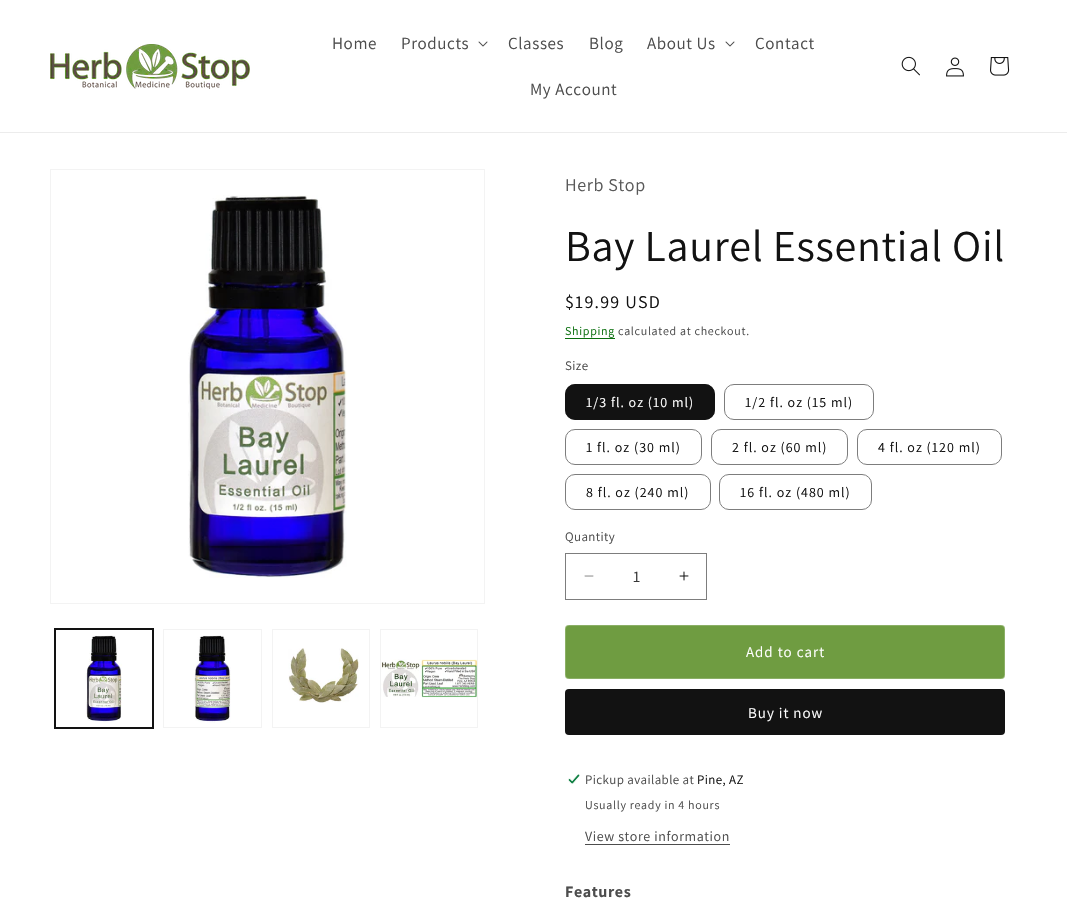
#include "include/core/SkBlurTypes.h"
#include "include/core/SkCanvas.h"
#include "include/core/SkData.h"
#include "include/core/SkFont.h"
#include "include/core/SkFontMgr.h"
#include "include/core/SkImage.h"
#include "include/core/SkMaskFilter.h"
#include "include/core/SkPaint.h"
#include "include/core/SkPathBuilder.h"
#include "include/core/SkTextBlob.h"
#include "include/effects/SkDashPathEffect.h"
#include "include/effects/SkGradientShader.h"
#include "include/utils/SkParsePath.h"

extern sk_sp<SkFontMgr> fontMgr;

void draw(SkCanvas* canvas) {
  SkPaint p;
  p.setAntiAlias(true);
  auto spacedText = [&](const char* s, float x, float y, const SkFont& font, const SkPaint& ink, float letter, float word) {
    std::vector<SkGlyphID> glyphs(font.countText(s, strlen(s), SkTextEncoding::kUTF8));
    std::vector<float> xs(glyphs.size());
    font.textToGlyphs(s, strlen(s), SkTextEncoding::kUTF8, glyphs);
    font.getXPos(glyphs, xs, x);
    float extra = 0;
    for (size_t i = 0; i < glyphs.size(); i++) {
      xs[i] += extra;
      extra += letter + word * (glyphs[i] == font.unicharToGlyph(' '));
    }
    canvas->drawTextBlob(SkTextBlob::MakeFromPosHGlyphs(glyphs, xs, y, font), 0, 0, ink);
  };
  canvas->clear(SK_ColorWHITE);
  p.setColor(SkColorSetRGB(236, 236, 236));
  canvas->drawRect(SkRect::MakeLTRB(0, 132, 1067, 133), p);
  canvas->drawImageRect(SkImages::DeferredFromEncodedData(SkData::MakeFromFileName("images/1.png")), SkRect::MakeLTRB(50, 44, 250, 89), SkSamplingOptions());
  canvas->drawImageRect(SkImages::DeferredFromEncodedData(SkData::MakeFromFileName("images/2.png")), SkRect::MakeLTRB(478, 41, 488, 47), SkSamplingOptions());
  canvas->drawImageRect(SkImages::DeferredFromEncodedData(SkData::MakeFromFileName("images/2.png")), SkRect::MakeLTRB(725, 41, 735, 47), SkSamplingOptions());
  canvas->drawImageRect(SkImages::DeferredFromEncodedData(SkData::MakeFromFileName("images/3.png")), SkRect::MakeLTRB(901, 56, 920, 76), SkSamplingOptions());
  canvas->drawImageRect(SkImages::DeferredFromEncodedData(SkData::MakeFromFileName("images/4.png")), SkRect::MakeLTRB(946, 57, 964, 77), SkSamplingOptions());
  canvas->drawImageRect(SkImages::DeferredFromEncodedData(SkData::MakeFromFileName("images/5.png")), SkRect::MakeLTRB(990, 57, 1010, 76), SkSamplingOptions());
  p.setStyle(SkPaint::kStroke_Style);
  p.setStrokeWidth(1);
  p.setColor(SkColorSetRGB(243, 243, 243));
  canvas->drawRect(SkRect::MakeLTRB(50.5f, 169.5f, 484.5f, 603.5f), p);
  canvas->drawImageRect(SkImages::DeferredFromEncodedData(SkData::MakeFromFileName("images/6.png")), SkRect::MakeLTRB(188, 195, 347, 578), SkSamplingOptions());
  p.setColor(SkColorSetRGB(18, 18, 18));
  canvas->drawRect(SkRect::MakeLTRB(54.5f, 628.5f, 153.5f, 728.5f), p);
  canvas->drawRect(SkRect::MakeLTRB(55.5f, 629.5f, 152.5f, 727.5f), p);
  canvas->drawImageRect(SkImages::DeferredFromEncodedData(SkData::MakeFromFileName("images/7.png")), SkRect::MakeLTRB(85, 635, 122, 723), SkSamplingOptions());
  p.setColor(SkColorSetRGB(243, 243, 243));
  canvas->drawRect(SkRect::MakeLTRB(163.5f, 629.5f, 261.5f, 727.5f), p);
  canvas->drawImageRect(SkImages::DeferredFromEncodedData(SkData::MakeFromFileName("images/8.png")), SkRect::MakeLTRB(193, 635, 231, 723), SkSamplingOptions());
  canvas->drawRect(SkRect::MakeLTRB(272.5f, 629.5f, 369.5f, 727.5f), p);
  canvas->drawImageRect(SkImages::DeferredFromEncodedData(SkData::MakeFromFileName("images/9.png")), SkRect::MakeLTRB(288, 648, 359, 703), SkSamplingOptions());
  canvas->drawRect(SkRect::MakeLTRB(380.5f, 629.5f, 477.5f, 727.5f), p);
  canvas->drawImageRect(SkImages::DeferredFromEncodedData(SkData::MakeFromFileName("images/10.png")), SkRect::MakeLTRB(381, 659, 477, 698), SkSamplingOptions());
  p.setStyle(SkPaint::kFill_Style);
  p.setColor(SkColorSetRGB(10, 111, 14));
  canvas->drawRect(SkRect::MakeLTRB(565, 338, 615, 339), p);
  p.setColor(SkColorSetRGB(18, 18, 18));
  canvas->drawRoundRect(SkRect::MakeLTRB(565, 384, 715, 420), 10, 10, p);
  p.setStyle(SkPaint::kStroke_Style);
  p.setColor(SkColorSetARGB(140, 18, 18, 18));
  canvas->drawRoundRect(SkRect::MakeLTRB(565.5f, 384.5f, 714.5f, 419.5f), 9.5f, 9.5f, p);
  p.setColor(SkColorSetRGB(125, 125, 125));
  canvas->drawRoundRect(SkRect::MakeLTRB(724.5f, 384.5f, 873.5f, 419.5f), 9.5f, 9.5f, p);
  canvas->drawRoundRect(SkRect::MakeLTRB(565.5f, 429.5f, 701.5f, 464.5f), 9.5f, 9.5f, p);
  canvas->drawRoundRect(SkRect::MakeLTRB(711.5f, 429.5f, 847.5f, 464.5f), 9.5f, 9.5f, p);
  canvas->drawRoundRect(SkRect::MakeLTRB(857.5f, 429.5f, 1001.5f, 464.5f), 9.5f, 9.5f, p);
  canvas->drawRoundRect(SkRect::MakeLTRB(565.5f, 474.5f, 710.5f, 509.5f), 9.5f, 9.5f, p);
  canvas->drawRoundRect(SkRect::MakeLTRB(719.5f, 474.5f, 871.5f, 509.5f), 9.5f, 9.5f, p);
  canvas->drawImageRect(SkImages::DeferredFromEncodedData(SkData::MakeFromFileName("images/11.png")), SkRect::MakeLTRB(584, 575, 594, 577), SkSamplingOptions());
  canvas->drawImageRect(SkImages::DeferredFromEncodedData(SkData::MakeFromFileName("images/12.png")), SkRect::MakeLTRB(679, 571, 689, 581), SkSamplingOptions());
  canvas->drawRect(SkRect::MakeLTRB(565.5f, 553.5f, 706.5f, 599.5f), p);
  p.setStyle(SkPaint::kFill_Style);
  p.setColor(SkColorSetRGB(111, 156, 65));
  canvas->drawRoundRect(SkRect::MakeLTRB(565, 625, 1005, 679), 4, 4, p);
  p.setStyle(SkPaint::kStroke_Style);
  p.setStrokeWidth(0.3f);
  p.setColor(SK_ColorWHITE);
  canvas->drawRoundRect(SkRect::MakeLTRB(565.15f, 625.15f, 1004.85f, 678.85f), 3.85f, 3.85f, p);
  p.setStyle(SkPaint::kFill_Style);
  p.setColor(SkColorSetRGB(18, 18, 18));
  canvas->drawRoundRect(SkRect::MakeLTRB(565, 689, 1005, 735), 4, 4, p);
  canvas->drawImageRect(SkImages::DeferredFromEncodedData(SkData::MakeFromFileName("images/13.png")), SkRect::MakeLTRB(568, 774, 580, 784), SkSamplingOptions());
  p.setColor(SkColorSetRGB(77, 77, 77));
  canvas->drawRect(SkRect::MakeLTRB(585, 844, 730, 845), p);
  SkFont font1(fontMgr->matchFamilyStyle("Assistant", SkFontStyle::Normal()), 17);
  font1.setSubpixel(true);
  spacedText("Home", 332, 49, font1, p, 0.6f, 0);
  spacedText("Products", 401, 49, font1, p, 0.6f, 0);
  spacedText("Classes", 508, 49, font1, p, 0.6f, 0);
  spacedText("Blog", 589, 49, font1, p, 0.6f, 0);
  spacedText("About Us", 647, 49, font1, p, 0.6f, 0);
  spacedText("Contact", 755, 49, font1, p, 0.6f, 0);
  spacedText("My Account", 530, 95, font1, p, 0.6f, 0);
  SkFont font2(fontMgr->matchFamilyStyle("Assistant", SkFontStyle::Normal()), 18);
  font2.setSubpixel(true);
  p.setColor(SkColorSetRGB(89, 89, 89));
  spacedText("Herb Stop", 565, 191, font2, p, 0.6f, 0);
  SkFont font3(fontMgr->matchFamilyStyle("Assistant", SkFontStyle::Normal()), 44);
  font3.setSubpixel(true);
  p.setColor(SkColorSetRGB(18, 18, 18));
  spacedText("Bay Laurel Essential Oil", 565, 261, font3, p, 0.7f, 0);
  spacedText("$19.99 USD", 565, 308, font2, p, 1.25f, 0);
  SkFont font4(fontMgr->matchFamilyStyle("Assistant", SkFontStyle::Normal()), 12);
  font4.setSubpixel(true);
  p.setColor(SkColorSetRGB(10, 111, 14));
  spacedText("Shipping", 565, 335, font4, p, 0.7f, 0);
  p.setColor(SkColorSetRGB(77, 77, 77));
  spacedText("calculated at checkout.", 618, 335, font4, p, 0.7f, 0);
  SkFont font5(fontMgr->matchFamilyStyle("Assistant", SkFontStyle::Normal()), 13);
  font5.setSubpixel(true);
  spacedText("Size", 565, 370, font5, p, 0.4f, 0);
  SkFont font6(fontMgr->matchFamilyStyle("Assistant", SkFontStyle::Normal()), 14);
  font6.setSubpixel(true);
  p.setColor(SK_ColorWHITE);
  spacedText("1/3 fl. oz (10 ml)", 586, 407, font6, p, 1, 0);
  p.setColor(SkColorSetRGB(18, 18, 18));
  spacedText("1/2 fl. oz (15 ml)", 745, 407, font6, p, 1, 0);
  spacedText("1 fl. oz (30 ml)", 586, 452, font6, p, 1, 0);
  spacedText("2 fl. oz (60 ml)", 732, 452, font6, p, 1, 0);
  spacedText("4 fl. oz (120 ml)", 878, 452, font6, p, 1, 0);
  spacedText("8 fl. oz (240 ml)", 586, 497, font6, p, 1, 0);
  spacedText("16 fl. oz (480 ml)", 740, 497, font6, p, 1, 0);
  p.setColor(SkColorSetRGB(77, 77, 77));
  spacedText("Quantity", 565, 541, font5, p, 0.4f, 0);
  SkFont font7(fontMgr->matchFamilyStyle("Assistant", SkFontStyle::Normal()), 16);
  font7.setSubpixel(true);
  p.setColor(SkColorSetRGB(54, 54, 54));
  canvas->drawString("1", 633, 582, font7, p);
  SkFont font8(fontMgr->matchFamilyStyle("Assistant", SkFontStyle::Normal()), 15);
  font8.setSubpixel(true);
  p.setColor(SK_ColorWHITE);
  spacedText("Add to cart", 746, 657, font8, p, 1, 0);
  spacedText("Buy it now", 748, 718, font8, p, 1, 0);
  p.setColor(SkColorSetRGB(77, 77, 77));
  spacedText("Pickup available at", 585, 784, font5, p, 0.4f, 0);
  p.setColor(SkColorSetRGB(18, 18, 18));
  spacedText("Pine, AZ", 697, 784, font5, p, 0.4f, 0);
  p.setColor(SkColorSetRGB(77, 77, 77));
  spacedText("Usually ready in 4 hours", 585, 809, font4, p, 0.7f, 0);
  spacedText("View store information", 585, 841, font6, p, 0.6f, 0);
  SkFont font9(fontMgr->matchFamilyStyle("Assistant", SkFontStyle::Bold()), 16);
  font9.setSubpixel(true);
  spacedText("Features", 565, 897, font9, p, 0.6f, 0);
}
